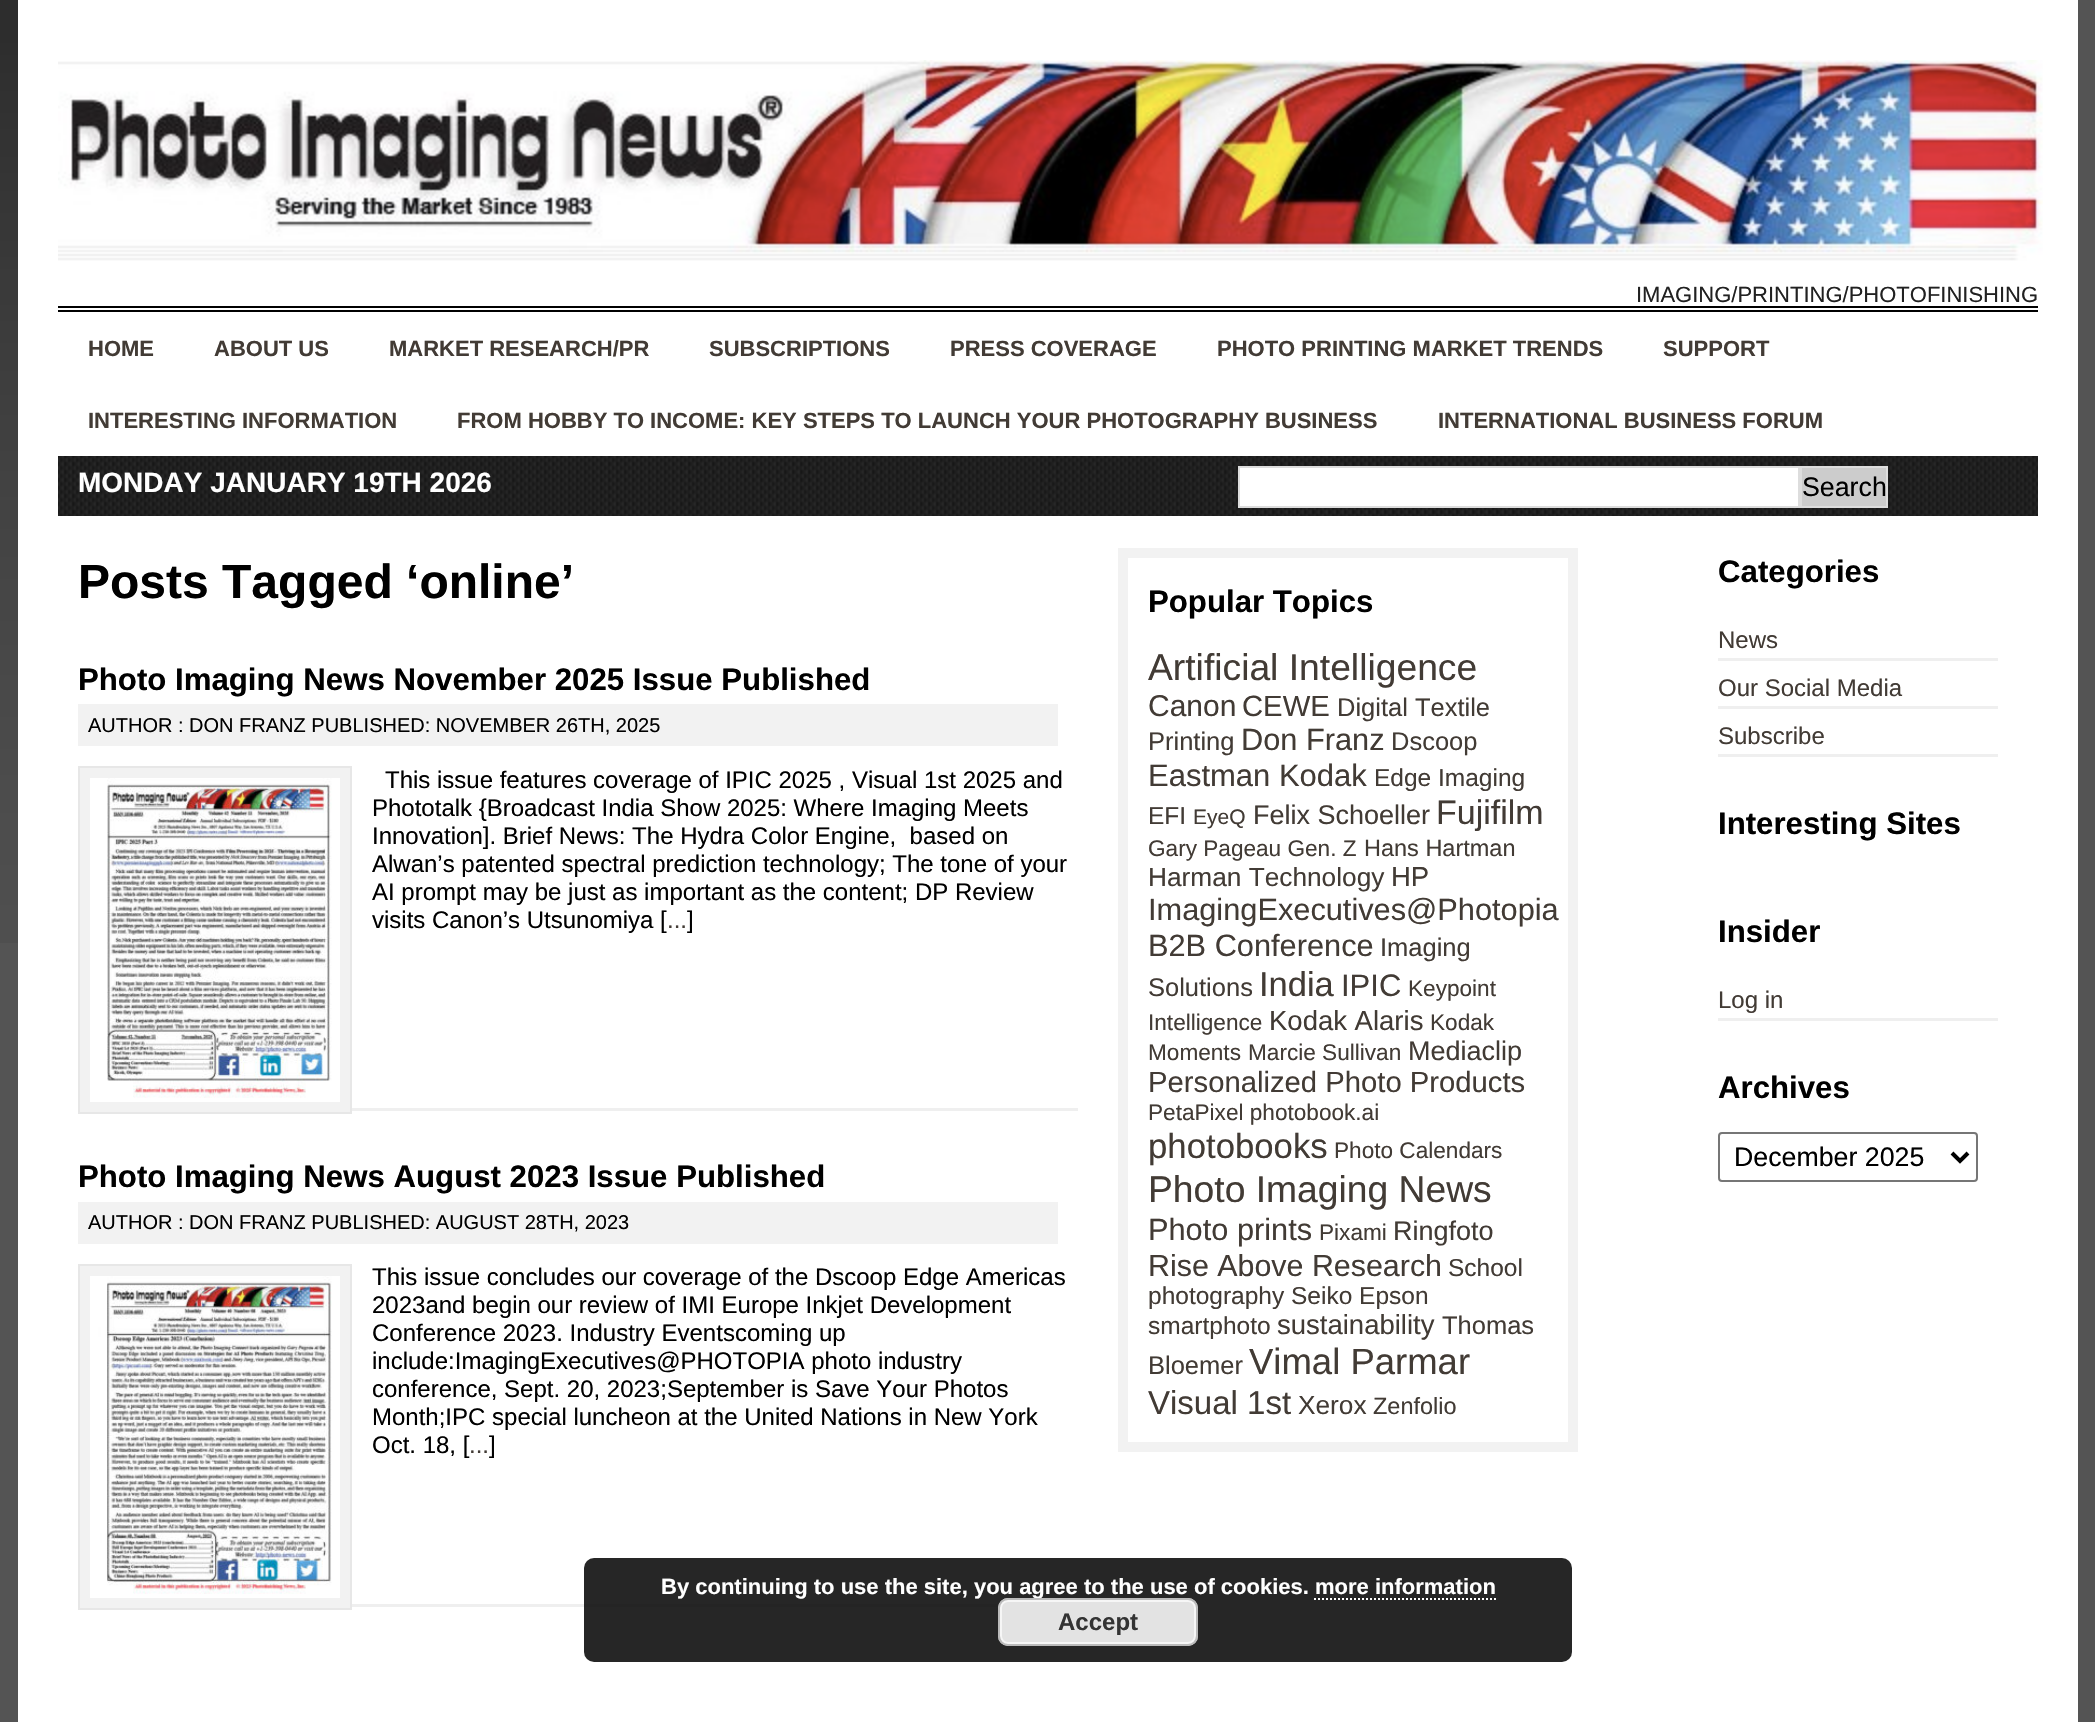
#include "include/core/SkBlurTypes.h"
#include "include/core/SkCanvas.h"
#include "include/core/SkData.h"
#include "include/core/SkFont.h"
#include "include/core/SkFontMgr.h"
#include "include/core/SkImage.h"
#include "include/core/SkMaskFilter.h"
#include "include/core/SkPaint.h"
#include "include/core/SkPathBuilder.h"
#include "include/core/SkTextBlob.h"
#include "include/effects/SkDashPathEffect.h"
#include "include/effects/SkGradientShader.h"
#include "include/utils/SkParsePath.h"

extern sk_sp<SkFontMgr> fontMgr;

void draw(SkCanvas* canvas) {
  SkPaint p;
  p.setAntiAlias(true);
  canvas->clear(SkColorSetRGB(84, 84, 84));
  canvas->drawImageRect(SkImages::DeferredFromEncodedData(SkData::MakeFromFileName("images/1.png")), SkRect::MakeLTRB(0, 0, 18, 943), SkSamplingOptions());
  p.setColor(SK_ColorWHITE);
  canvas->drawRect(SkRect::MakeLTRB(18, 0, 2078, 1722), p);
  canvas->drawImageRect(SkImages::DeferredFromEncodedData(SkData::MakeFromFileName("images/2.png")), SkRect::MakeLTRB(58, 60, 2043, 261), SkSamplingOptions());
  p.setColor(SK_ColorBLACK);
  canvas->drawRect(SkRect::MakeLTRB(58, 306, 2038, 308), p);
  canvas->drawRect(SkRect::MakeLTRB(58, 310, 2038, 312), p);
  canvas->drawImageRect(SkImages::DeferredFromEncodedData(SkData::MakeFromFileName("images/3.png")), SkRect::MakeLTRB(58, 456, 2038, 516), SkSamplingOptions());
  p.setColor(SK_ColorWHITE);
  canvas->drawRect(SkRect::MakeLTRB(1239, 467, 1799, 507), p);
  p.setStyle(SkPaint::kStroke_Style);
  p.setStrokeWidth(2);
  p.setColor(SkColorSetRGB(221, 221, 221));
  canvas->drawRect(SkRect::MakeLTRB(1239, 467, 1799, 507), p);
  p.setStyle(SkPaint::kFill_Style);
  p.setColor(SkColorSetRGB(204, 204, 204));
  canvas->drawRect(SkRect::MakeLTRB(1801, 467, 1887, 507), p);
  p.setStyle(SkPaint::kStroke_Style);
  p.setColor(SkColorSetRGB(221, 221, 221));
  canvas->drawRect(SkRect::MakeLTRB(1801, 467, 1887, 507), p);
  p.setStyle(SkPaint::kFill_Style);
  p.setColor(SkColorSetRGB(239, 239, 239));
  canvas->drawRect(SkRect::MakeLTRB(352, 1108, 1078, 1111), p);
  p.setColor(SkColorSetRGB(242, 242, 242));
  canvas->drawRect(SkRect::MakeLTRB(78, 704, 1058, 746), p);
  canvas->drawRect(SkRect::MakeLTRB(79, 767, 351, 1113), p);
  p.setStyle(SkPaint::kStroke_Style);
  p.setColor(SkColorSetRGB(231, 231, 231));
  canvas->drawRect(SkRect::MakeLTRB(79, 767, 351, 1113), p);
  canvas->drawImageRect(SkImages::DeferredFromEncodedData(SkData::MakeFromFileName("images/4.png")), SkRect::MakeLTRB(90, 778, 340, 1102), SkSamplingOptions());
  p.setStyle(SkPaint::kFill_Style);
  p.setColor(SkColorSetRGB(239, 239, 239));
  canvas->drawRect(SkRect::MakeLTRB(352, 1604, 999, 1607), p);
  p.setColor(SkColorSetRGB(242, 242, 242));
  canvas->drawRect(SkRect::MakeLTRB(78, 1202, 1058, 1244), p);
  canvas->drawRect(SkRect::MakeLTRB(79, 1265, 351, 1609), p);
  p.setStyle(SkPaint::kStroke_Style);
  p.setColor(SkColorSetRGB(231, 231, 231));
  canvas->drawRect(SkRect::MakeLTRB(79, 1265, 351, 1609), p);
  canvas->drawImageRect(SkImages::DeferredFromEncodedData(SkData::MakeFromFileName("images/5.png")), SkRect::MakeLTRB(90, 1276, 340, 1598), SkSamplingOptions());
  p.setStrokeWidth(10);
  p.setColor(SkColorSetRGB(242, 242, 242));
  canvas->drawRect(SkRect::MakeLTRB(1123, 553, 1573, 1447), p);
  p.setStyle(SkPaint::kFill_Style);
  p.setColor(SkColorSetRGB(239, 239, 239));
  canvas->drawRect(SkRect::MakeLTRB(1718, 658, 1998, 661), p);
  canvas->drawRect(SkRect::MakeLTRB(1718, 706, 1998, 709), p);
  canvas->drawRect(SkRect::MakeLTRB(1718, 754, 1998, 757), p);
  canvas->drawRect(SkRect::MakeLTRB(1718, 1018, 1998, 1021), p);
  p.setStyle(SkPaint::kStroke_Style);
  p.setStrokeWidth(2);
  p.setColor(SkColorSetRGB(118, 118, 118));
  canvas->drawRoundRect(SkRect::MakeLTRB(1719, 1133, 1977, 1181), 3, 3, p);
  p.setStrokeWidth(4);
  p.setColor(SK_ColorBLACK);
  canvas->drawPath(SkPathBuilder().moveTo(1952, 1153).lineTo(1960, 1161).lineTo(1968, 1153).detach(), p);
  p.setStyle(SkPaint::kFill_Style);
  p.setColor(SkColorSetARGB(217, 0, 0, 0));
  canvas->drawRoundRect(SkRect::MakeLTRB(584, 1558, 1572, 1662), 10, 10, p);
  p.setStyle(SkPaint::kStroke_Style);
  p.setStrokeWidth(2);
  p.setColor(SK_ColorWHITE);
  p.setPathEffect(SkDashPathEffect::Make({{2, 2}}, 0));
  canvas->drawPath(SkPathBuilder().moveTo(1314, 1599).lineTo(1496, 1599).detach(), p);
  p.setPathEffect(nullptr);
  SkFont font1(fontMgr->matchFamilyStyle("Liberation Sans", SkFontStyle::Normal()), 22);
  font1.setSubpixel(true);
  p.setStyle(SkPaint::kFill_Style);
  p.setColor(SkColorSetRGB(33, 33, 33));
  canvas->drawString("IMAGING/PRINTING/PHOTOFINISHING", 1636, 302, font1, p);
  SkFont font2(fontMgr->matchFamilyStyle("Liberation Sans", SkFontStyle::Bold()), 22);
  font2.setSubpixel(true);
  p.setColor(SkColorSetRGB(66, 59, 53));
  canvas->drawString("HOME", 88, 356, font2, p);
  canvas->drawString("ABOUT US", 214, 356, font2, p);
  canvas->drawString("MARKET RESEARCH/PR", 389, 356, font2, p);
  canvas->drawString("SUBSCRIPTIONS", 709, 356, font2, p);
  canvas->drawString("PRESS COVERAGE", 950, 356, font2, p);
  canvas->drawString("PHOTO PRINTING MARKET TRENDS", 1217, 356, font2, p);
  canvas->drawString("SUPPORT", 1663, 356, font2, p);
  canvas->drawString("INTERESTING INFORMATION", 88, 428, font2, p);
  canvas->drawString("FROM HOBBY TO INCOME: KEY STEPS TO LAUNCH YOUR PHOTOGRAPHY BUSINESS", 457, 428, font2, p);
  canvas->drawString("INTERNATIONAL BUSINESS FORUM", 1438, 428, font2, p);
  SkFont font3(fontMgr->matchFamilyStyle("Liberation Sans", SkFontStyle::Bold()), 28);
  font3.setSubpixel(true);
  p.setColor(SK_ColorWHITE);
  canvas->drawString("MONDAY JANUARY 19TH 2026", 78, 492, font3, p);
  SkFont font4(fontMgr->matchFamilyStyle("Liberation Sans", SkFontStyle::Normal()), 26.75f);
  font4.setSubpixel(true);
  p.setColor(SK_ColorBLACK);
  canvas->drawString("Search", 1802, 496, font4, p);
  SkFont font5(fontMgr->matchFamilyStyle("Liberation Sans", SkFontStyle::Bold()), 48);
  font5.setSubpixel(true);
  canvas->drawString("Posts Tagged ‘online’", 78, 598, font5, p);
  SkFont font6(fontMgr->matchFamilyStyle("Liberation Sans", SkFontStyle::Bold()), 31.2f);
  font6.setSubpixel(true);
  canvas->drawString("Photo Imaging News November 2025 Issue Published", 78, 690, font6, p);
  SkFont font7(fontMgr->matchFamilyStyle("Liberation Sans", SkFontStyle::Normal()), 20);
  font7.setSubpixel(true);
  canvas->drawString("AUTHOR : DON FRANZ PUBLISHED: NOVEMBER 26TH, 2025", 88, 732, font7, p);
  SkFont font8(fontMgr->matchFamilyStyle("Liberation Sans", SkFontStyle::Normal()), 24);
  font8.setSubpixel(true);
  canvas->drawString("This issue features coverage of IPIC 2025 , Visual 1st 2025 and", 385, 788, font8, p);
  canvas->drawString("Phototalk {Broadcast India Show 2025: Where Imaging Meets", 372, 816, font8, p);
  canvas->drawString("Innovation]. Brief News: The Hydra Color Engine,  based on", 372, 844, font8, p);
  canvas->drawString("Alwan’s patented spectral prediction technology; The tone of your", 372, 872, font8, p);
  canvas->drawString("AI prompt may be just as important as the content; DP Review", 372, 900, font8, p);
  canvas->drawString("visits Canon’s Utsunomiya [", 372, 928, font8, p);
  p.setColor(SkColorSetRGB(66, 59, 53));
  canvas->drawString("...", 667, 928, font8, p);
  p.setColor(SK_ColorBLACK);
  canvas->drawString("]", 687, 928, font8, p);
  canvas->drawString("Photo Imaging News August 2023 Issue Published", 78, 1187, font6, p);
  canvas->drawString("AUTHOR : DON FRANZ PUBLISHED: AUGUST 28TH, 2023", 88, 1229, font7, p);
  canvas->drawString("This issue concludes our coverage of the Dscoop Edge Americas", 372, 1285, font8, p);
  canvas->drawString("2023and begin our review of IMI Europe Inkjet Development", 372, 1313, font8, p);
  canvas->drawString("Conference 2023. Industry Eventscoming up", 372, 1341, font8, p);
  canvas->drawString("include:ImagingExecutives@PHOTOPIA photo industry", 372, 1369, font8, p);
  canvas->drawString("conference, Sept. 20, 2023;September is Save Your Photos", 372, 1397, font8, p);
  canvas->drawString("Month;IPC special luncheon at the United Nations in New York", 372, 1425, font8, p);
  canvas->drawString("Oct. 18, [", 372, 1453, font8, p);
  p.setColor(SkColorSetRGB(66, 59, 53));
  canvas->drawString("...", 469, 1453, font8, p);
  p.setColor(SK_ColorBLACK);
  canvas->drawString("]", 489, 1453, font8, p);
  canvas->drawString("Popular Topics", 1148, 612, font6, p);
  SkFont font9(fontMgr->matchFamilyStyle("Liberation Sans", SkFontStyle::Normal()), 37.25f);
  font9.setSubpixel(true);
  p.setColor(SkColorSetRGB(66, 59, 53));
  canvas->drawString("Artificial Intelligence", 1148, 680, font9, p);
  SkFont font10(fontMgr->matchFamilyStyle("Liberation Sans", SkFontStyle::Normal()), 30);
  font10.setSubpixel(true);
  canvas->drawString("Canon", 1148, 716, font10, p);
  SkFont font11(fontMgr->matchFamilyStyle("Liberation Sans", SkFontStyle::Normal()), 29.25f);
  font11.setSubpixel(true);
  canvas->drawString("CEWE", 1242, 716, font11, p);
  SkFont font12(fontMgr->matchFamilyStyle("Liberation Sans", SkFontStyle::Normal()), 25.5f);
  font12.setSubpixel(true);
  canvas->drawString("Digital Textile", 1337, 716, font12, p);
  canvas->drawString("Printing", 1148, 750, font12, p);
  SkFont font13(fontMgr->matchFamilyStyle("Liberation Sans", SkFontStyle::Normal()), 30.75f);
  font13.setSubpixel(true);
  canvas->drawString("Don Franz", 1241, 750, font13, p);
  canvas->drawString("Dscoop", 1391, 750, font12, p);
  SkFont font14(fontMgr->matchFamilyStyle("Liberation Sans", SkFontStyle::Normal()), 31);
  font14.setSubpixel(true);
  canvas->drawString("Eastman Kodak", 1148, 786, font14, p);
  SkFont font15(fontMgr->matchFamilyStyle("Liberation Sans", SkFontStyle::Normal()), 24.5f);
  font15.setSubpixel(true);
  canvas->drawString("Edge Imaging", 1374, 786, font15, p);
  canvas->drawString("EFI", 1148, 824, font15, p);
  SkFont font16(fontMgr->matchFamilyStyle("Liberation Sans", SkFontStyle::Normal()), 21);
  font16.setSubpixel(true);
  canvas->drawString("EyeQ", 1193, 824, font16, p);
  SkFont font17(fontMgr->matchFamilyStyle("Liberation Sans", SkFontStyle::Normal()), 27);
  font17.setSubpixel(true);
  canvas->drawString("Felix Schoeller", 1253, 824, font17, p);
  SkFont font18(fontMgr->matchFamilyStyle("Liberation Sans", SkFontStyle::Normal()), 34);
  font18.setSubpixel(true);
  canvas->drawString("Fujifilm", 1436, 824, font18, p);
  SkFont font19(fontMgr->matchFamilyStyle("Liberation Sans", SkFontStyle::Normal()), 22.6f);
  font19.setSubpixel(true);
  canvas->drawString("Gary Pageau Gen. Z", 1148, 856, font19, p);
  SkFont font20(fontMgr->matchFamilyStyle("Liberation Sans", SkFontStyle::Normal()), 23.5f);
  font20.setSubpixel(true);
  canvas->drawString("Hans Hartman", 1364, 856, font20, p);
  SkFont font21(fontMgr->matchFamilyStyle("Liberation Sans", SkFontStyle::Normal()), 26.25f);
  font21.setSubpixel(true);
  canvas->drawString("Harman Technology", 1148, 886, font21, p);
  SkFont font22(fontMgr->matchFamilyStyle("Liberation Sans", SkFontStyle::Normal()), 27.5f);
  font22.setSubpixel(true);
  canvas->drawString("HP", 1391, 886, font22, p);
  canvas->drawString("ImagingExecutives@Photopia", 1148, 920, font13, p);
  canvas->drawString("B2B Conference", 1148, 956, font13, p);
  canvas->drawString("Imaging", 1380, 956, font12, p);
  canvas->drawString("Solutions", 1148, 996, font12, p);
  SkFont font23(fontMgr->matchFamilyStyle("Liberation Sans", SkFontStyle::Normal()), 34.5f);
  font23.setSubpixel(true);
  canvas->drawString("India", 1259, 996, font23, p);
  canvas->drawString("IPIC", 1341, 996, font14, p);
  canvas->drawString("Keypoint", 1408, 996, font19, p);
  canvas->drawString("Intelligence", 1148, 1030, font19, p);
  canvas->drawString("Kodak Alaris", 1269, 1030, font22, p);
  canvas->drawString("Kodak", 1430, 1030, font19, p);
  canvas->drawString("Moments", 1148, 1060, font19, p);
  canvas->drawString("Marcie Sullivan", 1248, 1060, font19, p);
  canvas->drawString("Mediaclip", 1408, 1060, font17, p);
  canvas->drawString("Personalized Photo Products", 1148, 1092, font11, p);
  canvas->drawString("PetaPixel photobook.ai", 1148, 1120, font19, p);
  SkFont font24(fontMgr->matchFamilyStyle("Liberation Sans", SkFontStyle::Normal()), 34.75f);
  font24.setSubpixel(true);
  canvas->drawString("photobooks", 1148, 1158, font24, p);
  canvas->drawString("Photo Calendars", 1334, 1158, font19, p);
  canvas->drawString("Photo Imaging News", 1148, 1202, font9, p);
  canvas->drawString("Photo prints", 1148, 1240, font13, p);
  canvas->drawString("Pixami", 1319, 1240, font19, p);
  canvas->drawString("Ringfoto", 1393, 1240, font17, p);
  SkFont font25(fontMgr->matchFamilyStyle("Liberation Sans", SkFontStyle::Normal()), 30.4f);
  font25.setSubpixel(true);
  canvas->drawString("Rise Above Research", 1148, 1276, font25, p);
  canvas->drawString("School", 1448, 1276, font15, p);
  canvas->drawString("photography Seiko Epson", 1148, 1304, font15, p);
  canvas->drawString("smartphoto", 1148, 1334, font15, p);
  canvas->drawString("sustainability", 1277, 1334, font22, p);
  canvas->drawString("Thomas", 1442, 1334, font12, p);
  canvas->drawString("Bloemer", 1148, 1374, font12, p);
  SkFont font26(fontMgr->matchFamilyStyle("Liberation Sans", SkFontStyle::Normal()), 36.5f);
  font26.setSubpixel(true);
  canvas->drawString("Vimal Parmar", 1249, 1374, font26, p);
  SkFont font27(fontMgr->matchFamilyStyle("Liberation Sans", SkFontStyle::Normal()), 33);
  font27.setSubpixel(true);
  canvas->drawString("Visual 1st", 1148, 1414, font27, p);
  canvas->drawString("Xerox", 1298, 1414, font21, p);
  canvas->drawString("Zenfolio", 1373, 1414, font20, p);
  p.setColor(SK_ColorBLACK);
  canvas->drawString("Categories", 1718, 582, font6, p);
  p.setColor(SkColorSetRGB(66, 59, 53));
  canvas->drawString("News", 1718, 648, font8, p);
  canvas->drawString("Our Social Media", 1718, 696, font8, p);
  canvas->drawString("Subscribe", 1718, 744, font8, p);
  p.setColor(SK_ColorBLACK);
  canvas->drawString("Interesting Sites", 1718, 834, font6, p);
  canvas->drawString("Insider", 1718, 942, font6, p);
  p.setColor(SkColorSetRGB(66, 59, 53));
  canvas->drawString("Log in", 1718, 1008, font8, p);
  p.setColor(SK_ColorBLACK);
  canvas->drawString("Archives", 1718, 1098, font6, p);
  canvas->drawString("December 2025", 1734, 1166, font4, p);
  p.setColor(SK_ColorWHITE);
  canvas->drawString("By continuing to use the site, you agree to the use of cookies. more information", 661, 1594, font2, p);
  p.setColor(SkColorSetRGB(227, 227, 227));
  canvas->drawRoundRect(SkRect::MakeLTRB(998, 1598, 1198, 1646), 10, 10, p);
  p.setStyle(SkPaint::kStroke_Style);
  p.setColor(SkColorSetRGB(246, 246, 246));
  canvas->drawRoundRect(SkRect::MakeLTRB(1001, 1601, 1195, 1643), 7, 7, p);
  p.setColor(SkColorSetRGB(187, 187, 187));
  canvas->drawRoundRect(SkRect::MakeLTRB(999, 1599, 1197, 1645), 9, 9, p);
  SkFont font28(fontMgr->matchFamilyStyle("Liberation Sans", SkFontStyle::Bold()), 24);
  font28.setSubpixel(true);
  p.setStyle(SkPaint::kFill_Style);
  p.setColor(SkColorSetRGB(51, 51, 51));
  canvas->drawString("Accept", 1058, 1630, font28, p);
}
